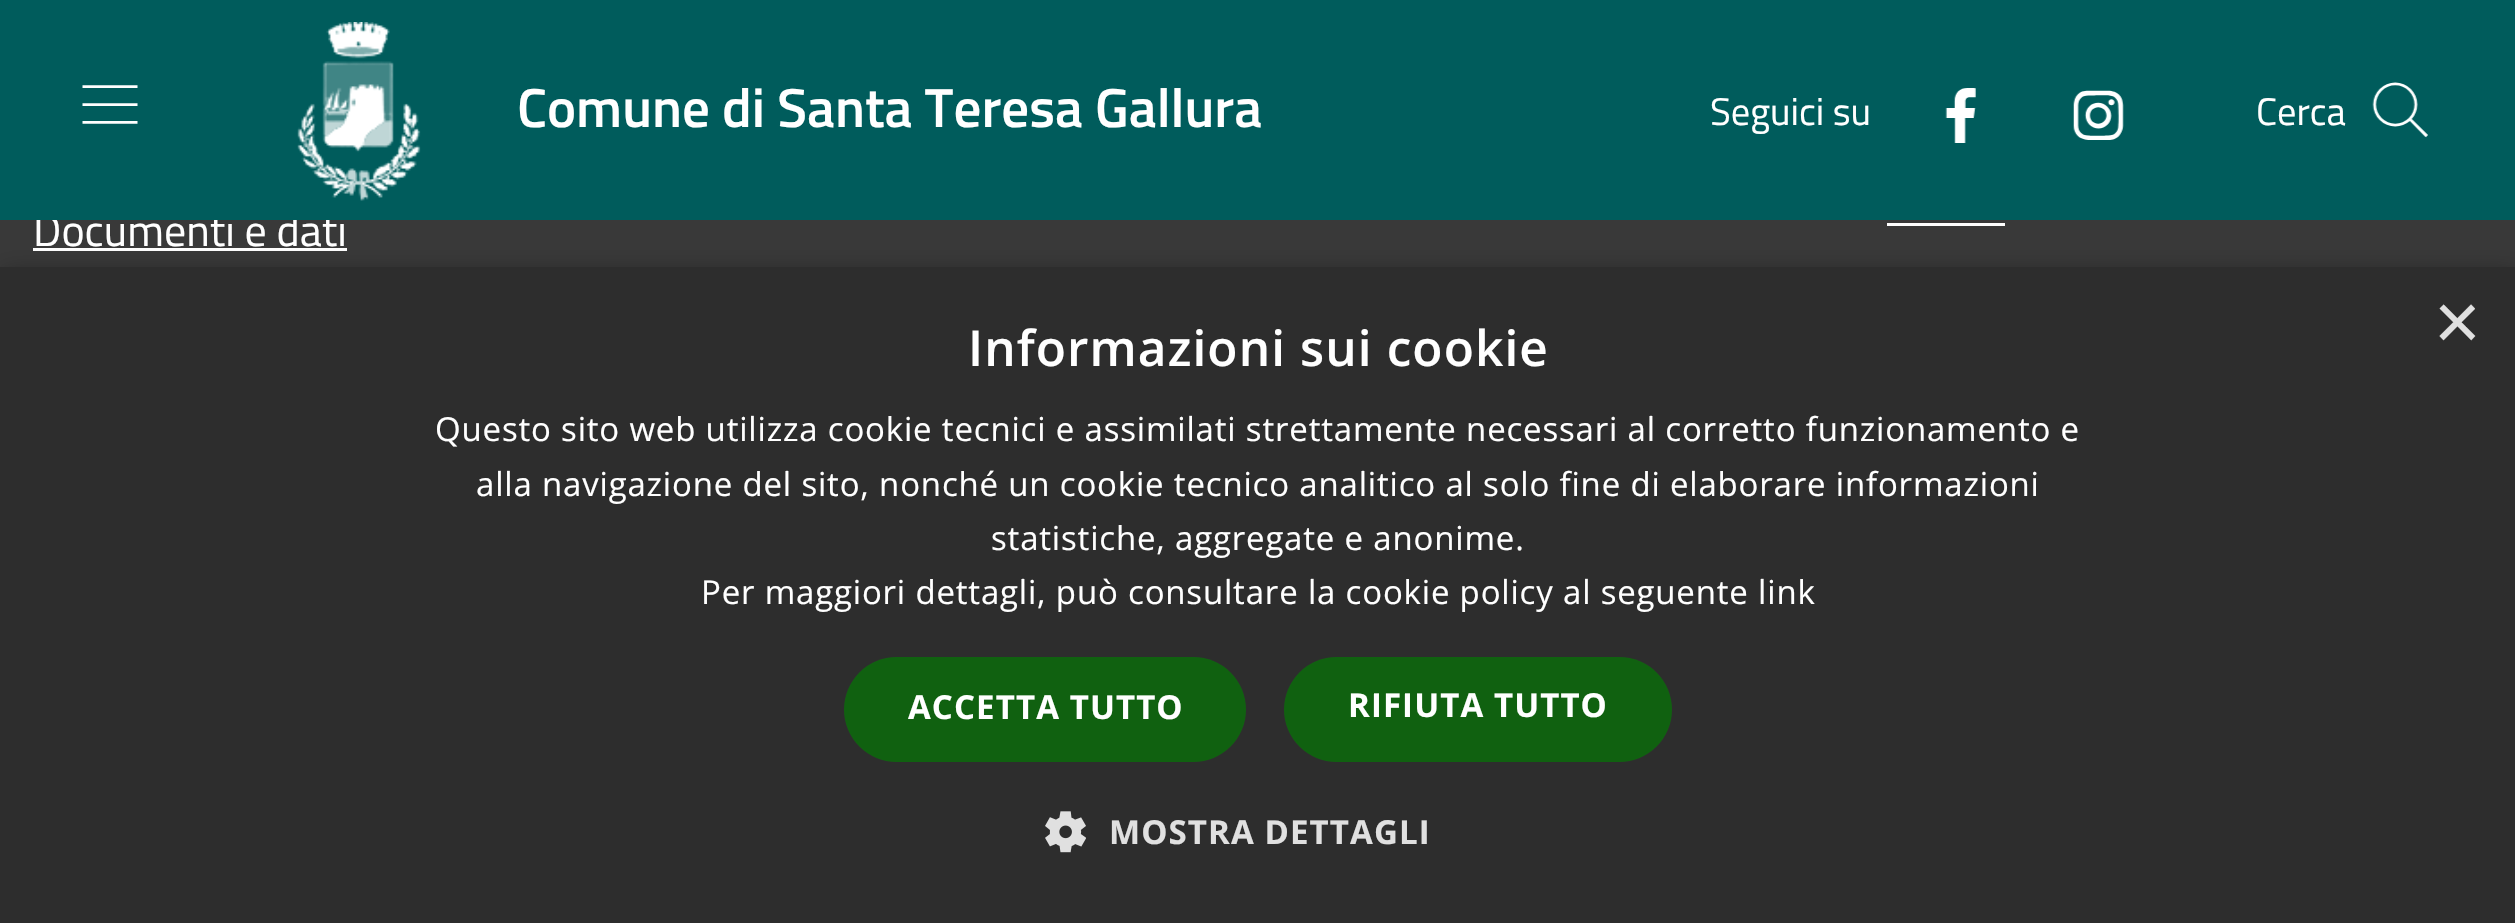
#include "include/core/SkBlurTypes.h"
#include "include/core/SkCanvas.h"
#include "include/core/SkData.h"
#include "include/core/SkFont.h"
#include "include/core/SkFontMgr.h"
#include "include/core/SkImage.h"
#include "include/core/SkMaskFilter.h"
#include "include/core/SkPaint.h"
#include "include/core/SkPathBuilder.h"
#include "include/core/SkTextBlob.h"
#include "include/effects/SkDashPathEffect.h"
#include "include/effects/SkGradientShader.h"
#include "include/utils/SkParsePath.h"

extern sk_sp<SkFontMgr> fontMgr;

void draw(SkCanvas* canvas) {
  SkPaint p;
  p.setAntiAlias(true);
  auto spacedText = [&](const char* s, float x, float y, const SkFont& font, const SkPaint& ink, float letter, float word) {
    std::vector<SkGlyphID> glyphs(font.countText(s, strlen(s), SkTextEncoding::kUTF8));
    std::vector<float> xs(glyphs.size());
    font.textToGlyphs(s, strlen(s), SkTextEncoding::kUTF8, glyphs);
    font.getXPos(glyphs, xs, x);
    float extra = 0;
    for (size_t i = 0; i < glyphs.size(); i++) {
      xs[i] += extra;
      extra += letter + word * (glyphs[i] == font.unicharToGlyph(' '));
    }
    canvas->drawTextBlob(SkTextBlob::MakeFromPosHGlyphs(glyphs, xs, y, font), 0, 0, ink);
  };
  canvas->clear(SkColorSetRGB(57, 57, 57));
  p.setColor(SK_ColorWHITE);
  canvas->drawRect(SkRect::MakeLTRB(33, 248, 347, 251), p);
  canvas->drawRect(SkRect::MakeLTRB(1887, 223, 2005, 226), p);
  p.setColor(SkColorSetARGB(89, 0, 0, 0));
  p.setMaskFilter(SkMaskFilter::MakeBlur(kNormal_SkBlurStyle, 11));
  canvas->drawRect(SkRect::MakeLTRB(3, 272, 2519, 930), p);
  p.setMaskFilter(nullptr);
  p.setColor(SkColorSetRGB(45, 45, 45));
  canvas->drawRect(SkRect::MakeLTRB(0, 267, 2515, 923), p);
  p.setColor(SkColorSetRGB(16, 97, 16));
  canvas->drawRoundRect(SkRect::MakeLTRB(844, 657, 1246, 762), 52.5f, 52.5f, p);
  canvas->drawRoundRect(SkRect::MakeLTRB(1284, 657, 1672, 762), 52.5f, 52.5f, p);
  canvas->drawImageRect(SkImages::DeferredFromEncodedData(SkData::MakeFromFileName("images/6.png")), SkRect::MakeLTRB(1045, 811, 1086, 853), SkSamplingOptions());
  SkFont font1(fontMgr->matchFamilyStyle("Titillium Web", SkFontStyle::Normal()), 44);
  font1.setSubpixel(true);
  p.setColor(SK_ColorWHITE);
  canvas->drawString("Documenti e dati", 33, 246, font1, p);
  p.setColor(SkColorSetRGB(0, 92, 92));
  canvas->drawRect(SkRect::MakeLTRB(0, 0, 2515, 220), p);
  canvas->drawImageRect(SkImages::DeferredFromEncodedData(SkData::MakeFromFileName("images/1.png")), SkRect::MakeLTRB(82, 85, 138, 124), SkSamplingOptions());
  canvas->drawImageRect(SkImages::DeferredFromEncodedData(SkData::MakeFromFileName("images/5.png")), SkRect::MakeLTRB(2372, 82, 2428, 138), SkSamplingOptions());
  canvas->drawImageRect(SkImages::DeferredFromEncodedData(SkData::MakeFromFileName("images/4.png")), SkRect::MakeLTRB(2073, 90, 2124, 140), SkSamplingOptions());
  canvas->drawImageRect(SkImages::DeferredFromEncodedData(SkData::MakeFromFileName("images/3.png")), SkRect::MakeLTRB(1945, 88, 1976, 143), SkSamplingOptions());
  canvas->drawImageRect(SkImages::DeferredFromEncodedData(SkData::MakeFromFileName("images/2.png")), SkRect::MakeLTRB(297, 22, 421, 201), SkSamplingOptions());
  SkFont font2(fontMgr->matchFamilyStyle("Titillium Web", SkFontStyle::Normal()), 38.5f);
  font2.setSubpixel(true);
  p.setColor(SK_ColorWHITE);
  canvas->drawString("Cerca", 2256, 125, font2, p);
  canvas->drawString("Seguici su", 1710, 125, font2, p);
  SkFont font3(fontMgr->matchFamilyStyle("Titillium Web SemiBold", SkFontStyle(600, SkFontStyle::kNormal_Width, SkFontStyle::kUpright_Slant)), 55);
  font3.setSubpixel(true);
  canvas->drawString("Comune di Santa Teresa Gallura", 517, 127, font3, p);
  SkFont font4(fontMgr->matchFamilyStyle("Liberation Sans", SkFontStyle::Normal()), 80);
  font4.setSubpixel(true);
  p.setColor(SkColorSetRGB(224, 224, 224));
  canvas->drawString("×", 2434, 349, font4, p);
  SkFont font5(fontMgr->matchFamilyStyle("Open Sans", SkFontStyle(600, SkFontStyle::kNormal_Width, SkFontStyle::kUpright_Slant)), 49.5f);
  font5.setSubpixel(true);
  p.setColor(SK_ColorWHITE);
  spacedText("Informazioni sui cookie", 968, 366, font5, p, 1.1f, 0);
  SkFont font6(fontMgr->matchFamilyStyle("Open Sans", SkFontStyle::Normal()), 33);
  font6.setSubpixel(true);
  spacedText("Questo sito web utilizza cookie tecnici e assimilati strettamente necessari al corretto funzionamento e", 435, 441, font6, p, 0.82f, 0);
  spacedText("alla navigazione del sito, nonché un cookie tecnico analitico al solo fine di elaborare informazioni", 476, 496, font6, p, 0.82f, 0);
  spacedText("statistiche, aggregate e anonime.", 991, 550, font6, p, 0.82f, 0);
  spacedText("Per maggiori dettagli, può consultare la cookie policy al seguente link", 701, 604, font6, p, 0.82f, 0);
  SkFont font7(fontMgr->matchFamilyStyle("Open Sans", SkFontStyle::Bold()), 33);
  font7.setSubpixel(true);
  spacedText("ACCETTA TUTTO", 908, 719, font7, p, 1.1f, 0);
  spacedText("RIFIUTA TUTTO", 1348, 717, font7, p, 1.1f, 0);
  p.setColor(SkColorSetRGB(224, 224, 224));
  spacedText("MOSTRA DETTAGLI", 1109, 844, font7, p, 1.1f, 0);
}
